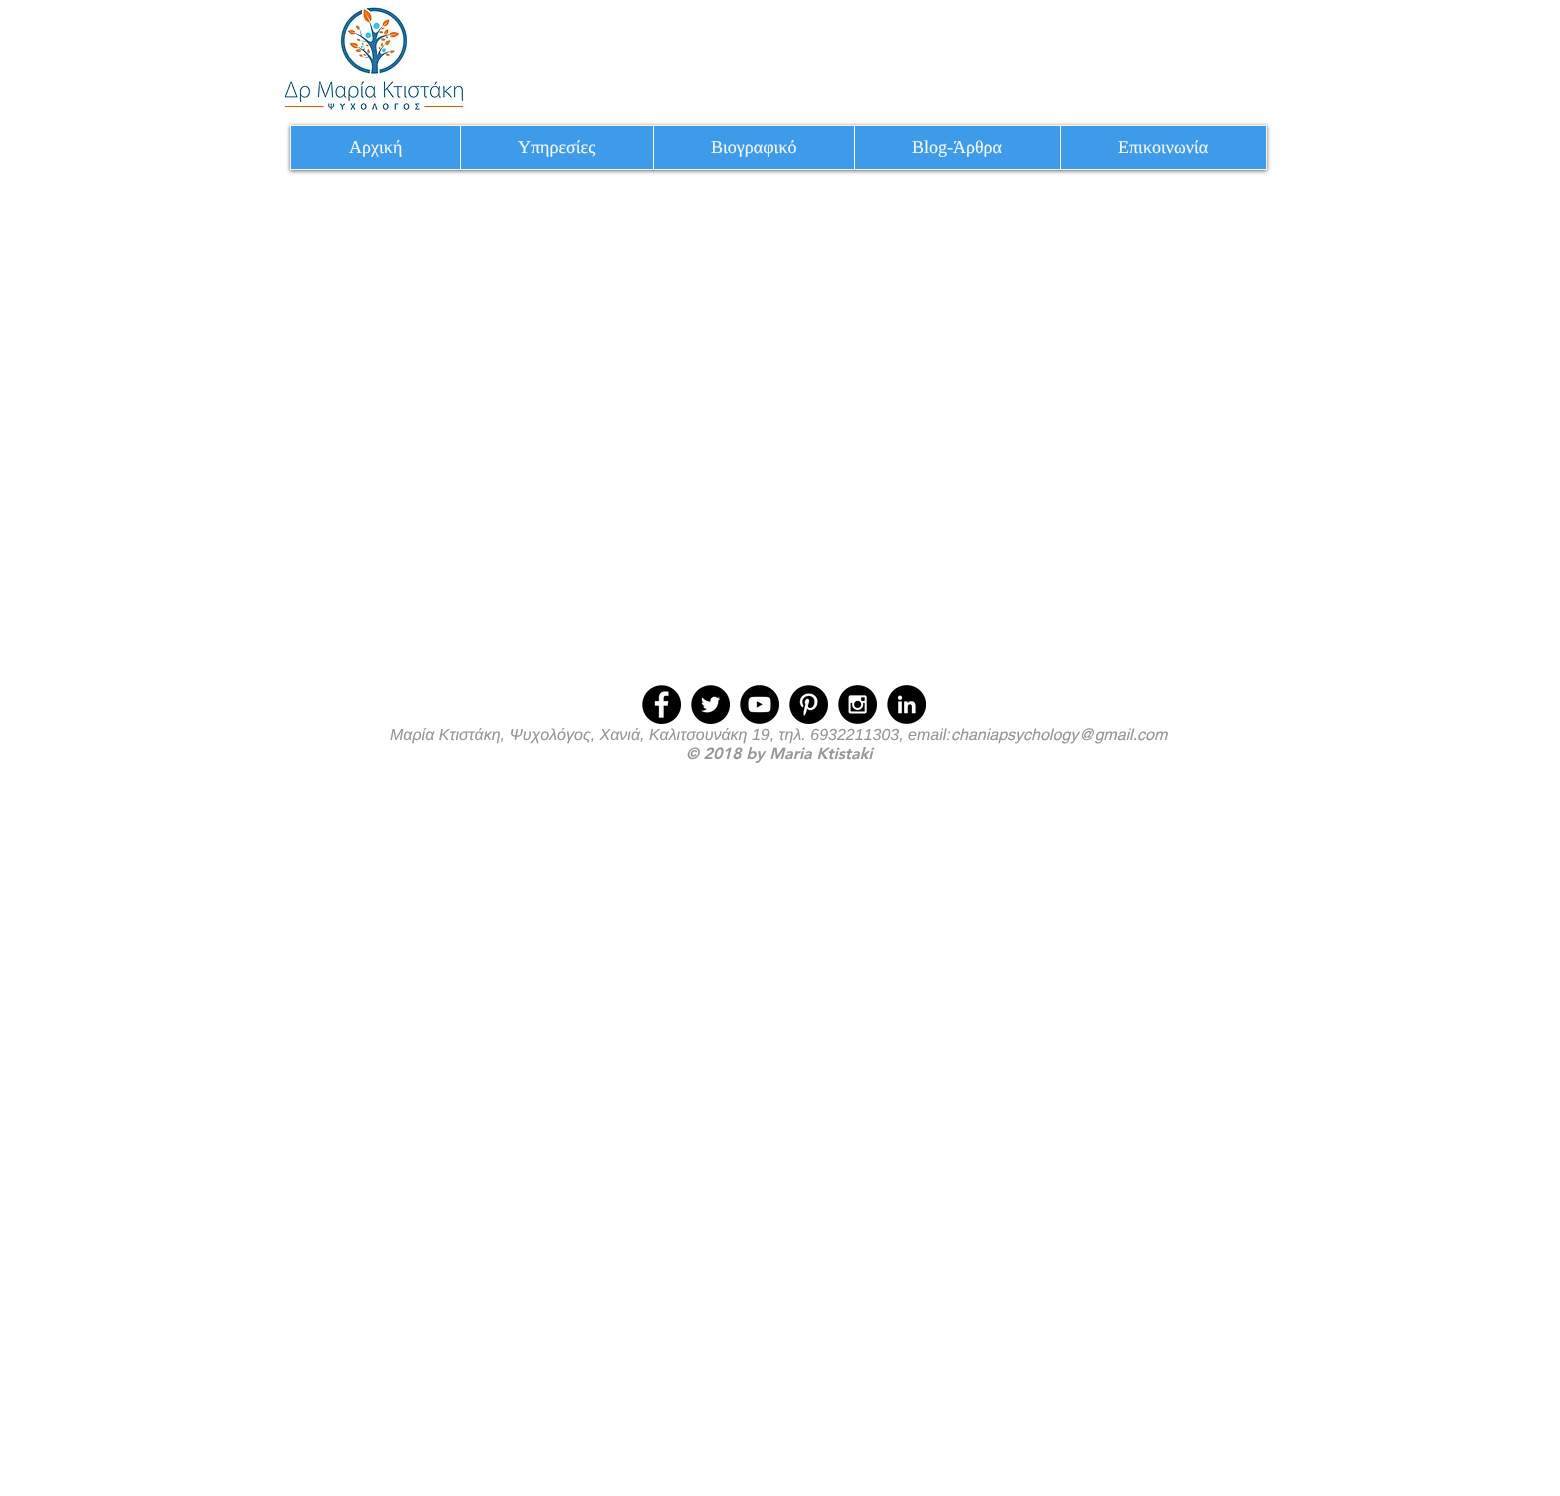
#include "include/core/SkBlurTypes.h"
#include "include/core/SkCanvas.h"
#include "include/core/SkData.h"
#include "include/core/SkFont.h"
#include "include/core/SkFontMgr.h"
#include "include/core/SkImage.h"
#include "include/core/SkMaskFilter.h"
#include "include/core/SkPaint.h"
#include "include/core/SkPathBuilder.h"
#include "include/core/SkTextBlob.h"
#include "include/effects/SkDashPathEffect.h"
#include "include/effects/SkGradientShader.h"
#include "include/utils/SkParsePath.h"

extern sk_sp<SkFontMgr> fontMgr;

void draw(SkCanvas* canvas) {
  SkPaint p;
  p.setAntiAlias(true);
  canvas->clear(SK_ColorWHITE);
  canvas->drawImageRect(SkImages::DeferredFromEncodedData(SkData::MakeFromFileName("images/1.png")), SkRect::MakeLTRB(283, 4, 467, 113), SkSamplingOptions());
  p.setColor(SkColorSetARGB(153, 0, 0, 0));
  p.setMaskFilter(SkMaskFilter::MakeBlur(kNormal_SkBlurStyle, 2));
  canvas->drawRect(SkRect::MakeLTRB(290, 126, 1267, 171), p);
  p.setMaskFilter(nullptr);
  p.setColor(SkColorSetRGB(61, 155, 233));
  canvas->drawRect(SkRect::MakeLTRB(290.5f, 125.5f, 1266.5f, 169.5f), p);
  p.setStyle(SkPaint::kStroke_Style);
  p.setStrokeWidth(1);
  p.setColor(SkColorSetRGB(245, 245, 245));
  canvas->drawRect(SkRect::MakeLTRB(290.5f, 125.5f, 1266.5f, 169.5f), p);
  p.setStyle(SkPaint::kFill_Style);
  p.setColor(SK_ColorWHITE);
  canvas->drawRect(SkRect::MakeLTRB(460, 126, 461, 169), p);
  canvas->drawRect(SkRect::MakeLTRB(653, 126, 654, 169), p);
  canvas->drawRect(SkRect::MakeLTRB(854, 126, 855, 169), p);
  canvas->drawRect(SkRect::MakeLTRB(1060, 126, 1061, 169), p);
  canvas->drawImageRect(SkImages::DeferredFromEncodedData(SkData::MakeFromFileName("images/2.png")), SkRect::MakeLTRB(642, 685, 681, 724), SkSamplingOptions());
  canvas->drawImageRect(SkImages::DeferredFromEncodedData(SkData::MakeFromFileName("images/3.png")), SkRect::MakeLTRB(691, 685, 730, 724), SkSamplingOptions());
  canvas->drawImageRect(SkImages::DeferredFromEncodedData(SkData::MakeFromFileName("images/4.png")), SkRect::MakeLTRB(740, 685, 779, 724), SkSamplingOptions());
  canvas->drawImageRect(SkImages::DeferredFromEncodedData(SkData::MakeFromFileName("images/5.png")), SkRect::MakeLTRB(789, 685, 828, 724), SkSamplingOptions());
  canvas->drawImageRect(SkImages::DeferredFromEncodedData(SkData::MakeFromFileName("images/6.png")), SkRect::MakeLTRB(838, 685, 877, 724), SkSamplingOptions());
  canvas->drawImageRect(SkImages::DeferredFromEncodedData(SkData::MakeFromFileName("images/7.png")), SkRect::MakeLTRB(887, 685, 926, 724), SkSamplingOptions());
  SkFont font1(fontMgr->matchFamilyStyle("Liberation Serif", SkFontStyle::Normal()), 18);
  font1.setSubpixel(true);
  p.setColor(SkColorSetRGB(245, 245, 245));
  canvas->drawString("Aρχική", 349, 153, font1, p);
  canvas->drawString("Υπηρεσίες", 518, 153, font1, p);
  canvas->drawString("Βιογραφικό", 711, 153, font1, p);
  canvas->drawString("Blog-Άρθρα", 912, 153, font1, p);
  canvas->drawString("Επικοινωνία", 1118, 153, font1, p);
  SkFont font2(fontMgr->matchFamilyStyle("Liberation Sans", SkFontStyle::Italic()), 16);
  font2.setSubpixel(true);
  p.setColor(SkColorSetRGB(150, 150, 150));
  canvas->drawString("Μαρία Κτιστάκη, Ψυχολόγος, Χανιά, Καλιτσουνάκη 19, τηλ. 6932211303, email:", 390, 740, font2, p);
  SkFont font3(fontMgr->matchFamilyStyle("helvetica", SkFontStyle::Italic()), 16);
  font3.setSubpixel(true);
  canvas->drawString("chaniapsychology@gmail.com", 951, 740, font3, p);
  SkFont font4(fontMgr->matchFamilyStyle("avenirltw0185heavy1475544", SkFontStyle(900, SkFontStyle::kNormal_Width, SkFontStyle::kItalic_Slant)), 16);
  font4.setSubpixel(true);
  canvas->drawString("© 2018 by Maria Ktistaki", 686, 759, font4, p);
}
